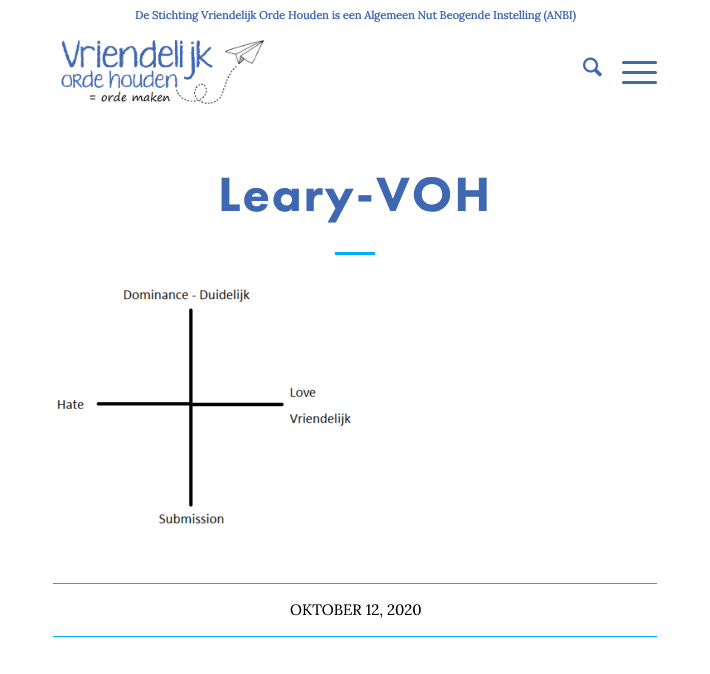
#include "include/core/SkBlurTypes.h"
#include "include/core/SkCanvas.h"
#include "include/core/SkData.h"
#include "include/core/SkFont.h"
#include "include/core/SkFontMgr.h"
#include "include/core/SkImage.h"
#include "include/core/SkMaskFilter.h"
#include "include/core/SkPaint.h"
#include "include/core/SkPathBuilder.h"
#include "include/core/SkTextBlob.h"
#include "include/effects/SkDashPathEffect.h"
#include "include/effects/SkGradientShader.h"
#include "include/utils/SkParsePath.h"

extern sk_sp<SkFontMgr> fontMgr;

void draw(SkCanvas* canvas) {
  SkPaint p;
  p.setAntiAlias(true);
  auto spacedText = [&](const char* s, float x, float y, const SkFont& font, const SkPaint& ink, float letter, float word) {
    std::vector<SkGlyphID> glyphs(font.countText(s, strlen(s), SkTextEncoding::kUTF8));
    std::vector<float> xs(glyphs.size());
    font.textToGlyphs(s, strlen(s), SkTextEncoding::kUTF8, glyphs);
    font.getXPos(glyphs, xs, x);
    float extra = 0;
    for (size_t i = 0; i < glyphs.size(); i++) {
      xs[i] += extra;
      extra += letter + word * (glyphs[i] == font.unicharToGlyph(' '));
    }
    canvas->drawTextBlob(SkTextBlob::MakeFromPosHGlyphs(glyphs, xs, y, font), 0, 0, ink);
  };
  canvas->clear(SK_ColorWHITE);
  canvas->drawImageRect(SkImages::DeferredFromEncodedData(SkData::MakeFromFileName("images/1.png")), SkRect::MakeLTRB(61, 39, 265, 104), SkSamplingOptions());
  canvas->drawImageRect(SkImages::DeferredFromEncodedData(SkData::MakeFromFileName("images/2.png")), SkRect::MakeLTRB(583, 57, 602, 77), SkSamplingOptions());
  p.setColor(SkColorSetRGB(64, 104, 178));
  canvas->drawRoundRect(SkRect::MakeLTRB(622, 71, 657, 74), 1.5f, 1.5f, p);
  canvas->drawRoundRect(SkRect::MakeLTRB(622, 61, 657, 64), 1.5f, 1.5f, p);
  canvas->drawRoundRect(SkRect::MakeLTRB(622, 81, 657, 84), 1.5f, 1.5f, p);
  p.setColor(SkColorSetRGB(0, 174, 255));
  canvas->drawRect(SkRect::MakeLTRB(335, 252, 375, 255), p);
  canvas->drawImageRect(SkImages::DeferredFromEncodedData(SkData::MakeFromFileName("images/3.png")), SkRect::MakeLTRB(57, 289, 352, 524), SkSamplingOptions());
  canvas->drawRect(SkRect::MakeLTRB(53, 583, 657, 584), p);
  canvas->drawRect(SkRect::MakeLTRB(53, 636, 657, 637), p);
  SkFont font1(fontMgr->matchFamilyStyle("Lora", SkFontStyle::Bold()), 11);
  font1.setSubpixel(true);
  p.setColor(SkColorSetRGB(64, 104, 178));
  canvas->drawString("De Stichting Vriendelijk Orde Houden is een Algemeen Nut Beogende Instelling (ANBI)", 135, 19, font1, p);
  SkFont font2(fontMgr->matchFamilyStyle("Futura PT", SkFontStyle(900, SkFontStyle::kNormal_Width, SkFontStyle::kUpright_Slant)), 50);
  font2.setSubpixel(true);
  spacedText("Leary-VOH", 218, 211, font2, p, 2, 0);
  SkFont font3(fontMgr->matchFamilyStyle("Lora", SkFontStyle::Normal()), 15);
  font3.setSubpixel(true);
  p.setColor(SK_ColorBLACK);
  canvas->drawString("OKTOBER 12, 2020", 290, 615, font3, p);
}
